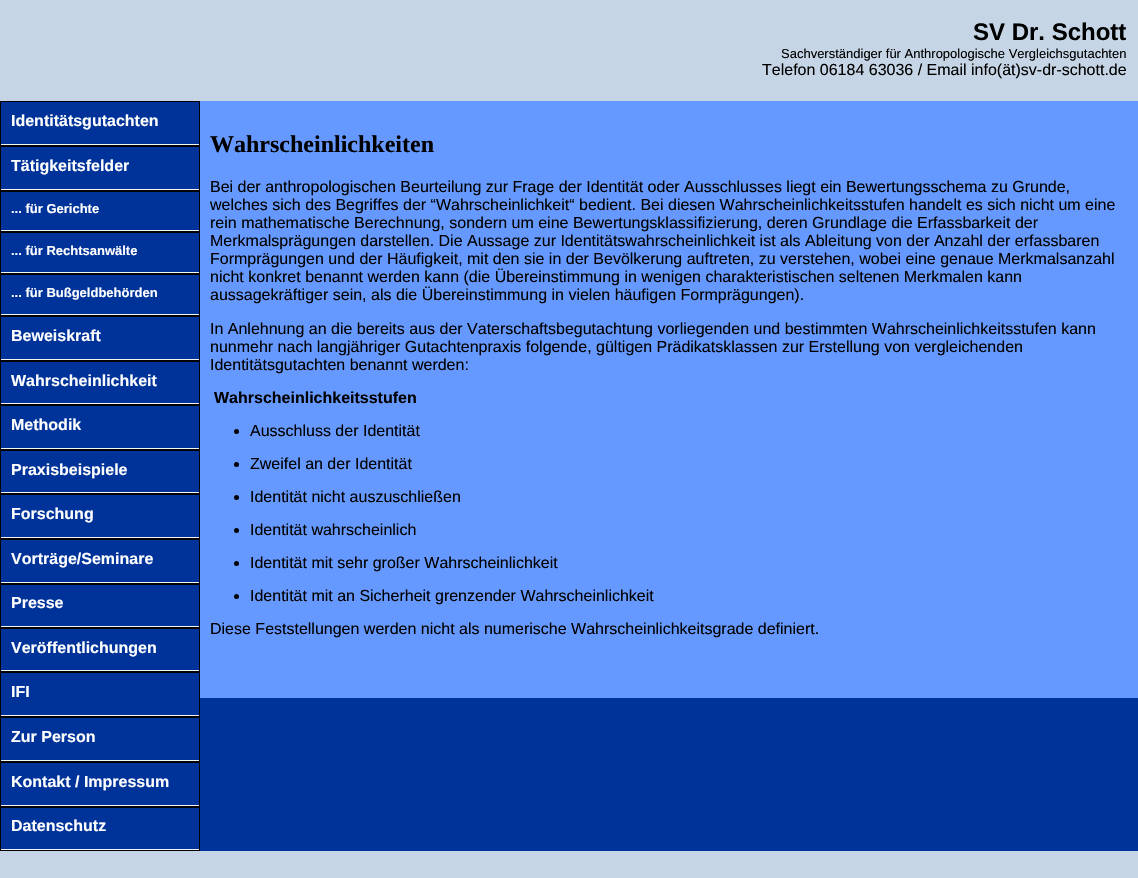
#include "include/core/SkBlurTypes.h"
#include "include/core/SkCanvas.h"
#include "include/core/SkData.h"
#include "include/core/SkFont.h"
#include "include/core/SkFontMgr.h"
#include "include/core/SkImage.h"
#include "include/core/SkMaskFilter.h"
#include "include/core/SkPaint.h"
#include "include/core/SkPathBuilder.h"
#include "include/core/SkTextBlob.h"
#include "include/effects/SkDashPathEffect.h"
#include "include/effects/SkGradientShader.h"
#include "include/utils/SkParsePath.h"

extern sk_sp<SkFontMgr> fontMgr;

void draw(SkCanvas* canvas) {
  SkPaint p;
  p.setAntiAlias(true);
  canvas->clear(SkColorSetRGB(0, 51, 153));
  p.setColor(SkColorSetRGB(197, 213, 229));
  canvas->drawRect(SkRect::MakeLTRB(0, 0, 1138, 101), p);
  p.setStyle(SkPaint::kStroke_Style);
  p.setStrokeWidth(1);
  p.setColor(SK_ColorBLACK);
  canvas->drawRect(SkRect::MakeLTRB(0.5f, 101.5f, 199.5f, 145.5f), p);
  p.setStyle(SkPaint::kFill_Style);
  p.setColor(SkColorSetRGB(245, 245, 245));
  canvas->drawRect(SkRect::MakeLTRB(1, 144, 199, 145), p);
  p.setStyle(SkPaint::kStroke_Style);
  p.setColor(SK_ColorBLACK);
  canvas->drawRect(SkRect::MakeLTRB(0.5f, 146.5f, 199.5f, 190.5f), p);
  p.setStyle(SkPaint::kFill_Style);
  p.setColor(SkColorSetRGB(245, 245, 245));
  canvas->drawRect(SkRect::MakeLTRB(1, 189, 199, 190), p);
  p.setStyle(SkPaint::kStroke_Style);
  p.setColor(SK_ColorBLACK);
  canvas->drawRect(SkRect::MakeLTRB(0.5f, 191.5f, 199.5f, 231.5f), p);
  p.setStyle(SkPaint::kFill_Style);
  p.setColor(SkColorSetRGB(245, 245, 245));
  canvas->drawRect(SkRect::MakeLTRB(1, 230, 199, 231), p);
  p.setStyle(SkPaint::kStroke_Style);
  p.setColor(SK_ColorBLACK);
  canvas->drawRect(SkRect::MakeLTRB(0.5f, 232.5f, 199.5f, 273.5f), p);
  p.setStyle(SkPaint::kFill_Style);
  p.setColor(SkColorSetRGB(245, 245, 245));
  canvas->drawRect(SkRect::MakeLTRB(1, 272, 199, 273), p);
  p.setStyle(SkPaint::kStroke_Style);
  p.setColor(SK_ColorBLACK);
  canvas->drawRect(SkRect::MakeLTRB(0.5f, 274.5f, 199.5f, 315.5f), p);
  p.setStyle(SkPaint::kFill_Style);
  p.setColor(SkColorSetRGB(245, 245, 245));
  canvas->drawRect(SkRect::MakeLTRB(1, 314, 199, 315), p);
  p.setStyle(SkPaint::kStroke_Style);
  p.setColor(SK_ColorBLACK);
  canvas->drawRect(SkRect::MakeLTRB(0.5f, 316.5f, 199.5f, 360.5f), p);
  p.setStyle(SkPaint::kFill_Style);
  p.setColor(SkColorSetRGB(245, 245, 245));
  canvas->drawRect(SkRect::MakeLTRB(1, 359, 199, 360), p);
  p.setStyle(SkPaint::kStroke_Style);
  p.setColor(SK_ColorBLACK);
  canvas->drawRect(SkRect::MakeLTRB(0.5f, 361.5f, 199.5f, 404.5f), p);
  p.setStyle(SkPaint::kFill_Style);
  p.setColor(SkColorSetRGB(245, 245, 245));
  canvas->drawRect(SkRect::MakeLTRB(1, 403, 199, 404), p);
  p.setStyle(SkPaint::kStroke_Style);
  p.setColor(SK_ColorBLACK);
  canvas->drawRect(SkRect::MakeLTRB(0.5f, 405.5f, 199.5f, 449.5f), p);
  p.setStyle(SkPaint::kFill_Style);
  p.setColor(SkColorSetRGB(245, 245, 245));
  canvas->drawRect(SkRect::MakeLTRB(1, 448, 199, 449), p);
  p.setStyle(SkPaint::kStroke_Style);
  p.setColor(SK_ColorBLACK);
  canvas->drawRect(SkRect::MakeLTRB(0.5f, 450.5f, 199.5f, 493.5f), p);
  p.setStyle(SkPaint::kFill_Style);
  p.setColor(SkColorSetRGB(245, 245, 245));
  canvas->drawRect(SkRect::MakeLTRB(1, 492, 199, 493), p);
  p.setStyle(SkPaint::kStroke_Style);
  p.setColor(SK_ColorBLACK);
  canvas->drawRect(SkRect::MakeLTRB(0.5f, 494.5f, 199.5f, 538.5f), p);
  p.setStyle(SkPaint::kFill_Style);
  p.setColor(SkColorSetRGB(245, 245, 245));
  canvas->drawRect(SkRect::MakeLTRB(1, 537, 199, 538), p);
  p.setStyle(SkPaint::kStroke_Style);
  p.setColor(SK_ColorBLACK);
  canvas->drawRect(SkRect::MakeLTRB(0.5f, 539.5f, 199.5f, 583.5f), p);
  p.setStyle(SkPaint::kFill_Style);
  p.setColor(SkColorSetRGB(245, 245, 245));
  canvas->drawRect(SkRect::MakeLTRB(1, 582, 199, 583), p);
  p.setStyle(SkPaint::kStroke_Style);
  p.setColor(SK_ColorBLACK);
  canvas->drawRect(SkRect::MakeLTRB(0.5f, 584.5f, 199.5f, 627.5f), p);
  p.setStyle(SkPaint::kFill_Style);
  p.setColor(SkColorSetRGB(245, 245, 245));
  canvas->drawRect(SkRect::MakeLTRB(1, 626, 199, 627), p);
  p.setStyle(SkPaint::kStroke_Style);
  p.setColor(SK_ColorBLACK);
  canvas->drawRect(SkRect::MakeLTRB(0.5f, 628.5f, 199.5f, 671.5f), p);
  p.setStyle(SkPaint::kFill_Style);
  p.setColor(SkColorSetRGB(245, 245, 245));
  canvas->drawRect(SkRect::MakeLTRB(1, 670, 199, 671), p);
  p.setStyle(SkPaint::kStroke_Style);
  p.setColor(SK_ColorBLACK);
  canvas->drawRect(SkRect::MakeLTRB(0.5f, 672.5f, 199.5f, 716.5f), p);
  p.setStyle(SkPaint::kFill_Style);
  p.setColor(SkColorSetRGB(245, 245, 245));
  canvas->drawRect(SkRect::MakeLTRB(1, 715, 199, 716), p);
  p.setStyle(SkPaint::kStroke_Style);
  p.setColor(SK_ColorBLACK);
  canvas->drawRect(SkRect::MakeLTRB(0.5f, 717.5f, 199.5f, 761.5f), p);
  p.setStyle(SkPaint::kFill_Style);
  p.setColor(SkColorSetRGB(245, 245, 245));
  canvas->drawRect(SkRect::MakeLTRB(1, 760, 199, 761), p);
  p.setStyle(SkPaint::kStroke_Style);
  p.setColor(SK_ColorBLACK);
  canvas->drawRect(SkRect::MakeLTRB(0.5f, 762.5f, 199.5f, 806.5f), p);
  p.setStyle(SkPaint::kFill_Style);
  p.setColor(SkColorSetRGB(245, 245, 245));
  canvas->drawRect(SkRect::MakeLTRB(1, 805, 199, 806), p);
  p.setStyle(SkPaint::kStroke_Style);
  p.setColor(SK_ColorBLACK);
  canvas->drawRect(SkRect::MakeLTRB(0.5f, 807.5f, 199.5f, 850.5f), p);
  p.setStyle(SkPaint::kFill_Style);
  p.setColor(SkColorSetRGB(245, 245, 245));
  canvas->drawRect(SkRect::MakeLTRB(1, 849, 199, 850), p);
  p.setColor(SkColorSetRGB(102, 153, 255));
  canvas->drawRect(SkRect::MakeLTRB(200, 101, 1138, 698), p);
  p.setColor(SK_ColorBLACK);
  canvas->drawCircle(236.5f, 431.5f, 2.5f, p);
  canvas->drawCircle(236.5f, 464.5f, 2.5f, p);
  canvas->drawCircle(236.5f, 497.5f, 2.5f, p);
  canvas->drawCircle(236.5f, 530.5f, 2.5f, p);
  canvas->drawCircle(236.5f, 563.5f, 2.5f, p);
  canvas->drawCircle(236.5f, 596.5f, 2.5f, p);
  p.setColor(SkColorSetRGB(197, 213, 229));
  canvas->drawRect(SkRect::MakeLTRB(0, 851, 1138, 878), p);
  SkFont font1(fontMgr->matchFamilyStyle("Liberation Sans", SkFontStyle::Bold()), 24);
  font1.setSubpixel(true);
  p.setColor(SK_ColorBLACK);
  canvas->drawString("SV Dr. Schott", 973, 40, font1, p);
  SkFont font2(fontMgr->matchFamilyStyle("Liberation Sans", SkFontStyle::Normal()), 13);
  font2.setSubpixel(true);
  canvas->drawString("Sachverständiger für Anthropologische Vergleichsgutachten", 781, 58, font2, p);
  SkFont font3(fontMgr->matchFamilyStyle("Liberation Sans", SkFontStyle::Normal()), 16);
  font3.setSubpixel(true);
  canvas->drawString("Telefon 06184 63036 / Email info(ät)sv-dr-schott.de", 762, 75, font3, p);
  SkFont font4(fontMgr->matchFamilyStyle("Liberation Sans", SkFontStyle::Bold()), 16);
  font4.setSubpixel(true);
  p.setColor(SK_ColorWHITE);
  canvas->drawString("Identitätsgutachten", 11, 126, font4, p);
  canvas->drawString("Tätigkeitsfelder", 11, 171, font4, p);
  SkFont font5(fontMgr->matchFamilyStyle("Liberation Sans", SkFontStyle::Bold()), 13);
  font5.setSubpixel(true);
  canvas->drawString("... für Gerichte", 11, 213, font5, p);
  canvas->drawString("... für Rechtsanwälte", 11, 255, font5, p);
  canvas->drawString("... für Bußgeldbehörden", 11, 297, font5, p);
  canvas->drawString("Beweiskraft", 11, 341, font4, p);
  canvas->drawString("Wahrscheinlichkeit", 11, 386, font4, p);
  canvas->drawString("Methodik", 11, 430, font4, p);
  canvas->drawString("Praxisbeispiele", 11, 475, font4, p);
  canvas->drawString("Forschung", 11, 519, font4, p);
  canvas->drawString("Vorträge/Seminare", 11, 564, font4, p);
  canvas->drawString("Presse", 11, 608, font4, p);
  canvas->drawString("Veröffentlichungen", 11, 653, font4, p);
  canvas->drawString("IFI", 11, 697, font4, p);
  canvas->drawString("Zur Person", 11, 742, font4, p);
  canvas->drawString("Kontakt / Impressum", 11, 787, font4, p);
  canvas->drawString("Datenschutz", 11, 831, font4, p);
  SkFont font6(fontMgr->matchFamilyStyle("Liberation Serif", SkFontStyle::Bold()), 24);
  font6.setSubpixel(true);
  p.setColor(SK_ColorBLACK);
  canvas->drawString("Wahrscheinlichkeiten", 210, 152, font6, p);
  canvas->drawString("Bei der anthropologischen Beurteilung zur Frage der Identität oder Ausschlusses liegt ein Bewertungsschema zu Grunde,", 210, 192, font3, p);
  canvas->drawString("welches sich des Begriffes der “Wahrscheinlichkeit“ bedient. Bei diesen Wahrscheinlichkeitsstufen handelt es sich nicht um eine", 210, 210, font3, p);
  canvas->drawString("rein mathematische Berechnung, sondern um eine Bewertungsklassifizierung, deren Grundlage die Erfassbarkeit der", 210, 228, font3, p);
  canvas->drawString("Merkmalsprägungen darstellen. Die Aussage zur Identitätswahrscheinlichkeit ist als Ableitung von der Anzahl der erfassbaren", 210, 246, font3, p);
  canvas->drawString("Formprägungen und der Häufigkeit, mit den sie in der Bevölkerung auftreten, zu verstehen, wobei eine genaue Merkmalsanzahl", 210, 264, font3, p);
  canvas->drawString("nicht konkret benannt werden kann (die Übereinstimmung in wenigen charakteristischen seltenen Merkmalen kann", 210, 282, font3, p);
  canvas->drawString("aussagekräftiger sein, als die Übereinstimmung in vielen häufigen Formprägungen).", 210, 300, font3, p);
  canvas->drawString("In Anlehnung an die bereits aus der Vaterschaftsbegutachtung vorliegenden und bestimmten Wahrscheinlichkeitsstufen kann", 210, 334, font3, p);
  canvas->drawString("nunmehr nach langjähriger Gutachtenpraxis folgende, gültigen Prädikatsklassen zur Erstellung von vergleichenden", 210, 352, font3, p);
  canvas->drawString("Identitätsgutachten benannt werden:", 210, 370, font3, p);
  canvas->drawString("Wahrscheinlichkeitsstufen", 214, 403, font4, p);
  canvas->drawString("Ausschluss der Identität", 250, 436, font3, p);
  canvas->drawString("Zweifel an der Identität", 250, 469, font3, p);
  canvas->drawString("Identität nicht auszuschließen", 250, 502, font3, p);
  canvas->drawString("Identität wahrscheinlich", 250, 535, font3, p);
  canvas->drawString("Identität mit sehr großer Wahrscheinlichkeit", 250, 568, font3, p);
  canvas->drawString("Identität mit an Sicherheit grenzender Wahrscheinlichkeit", 250, 601, font3, p);
  canvas->drawString("Diese Feststellungen werden nicht als numerische Wahrscheinlichkeitsgrade definiert.", 210, 634, font3, p);
}
